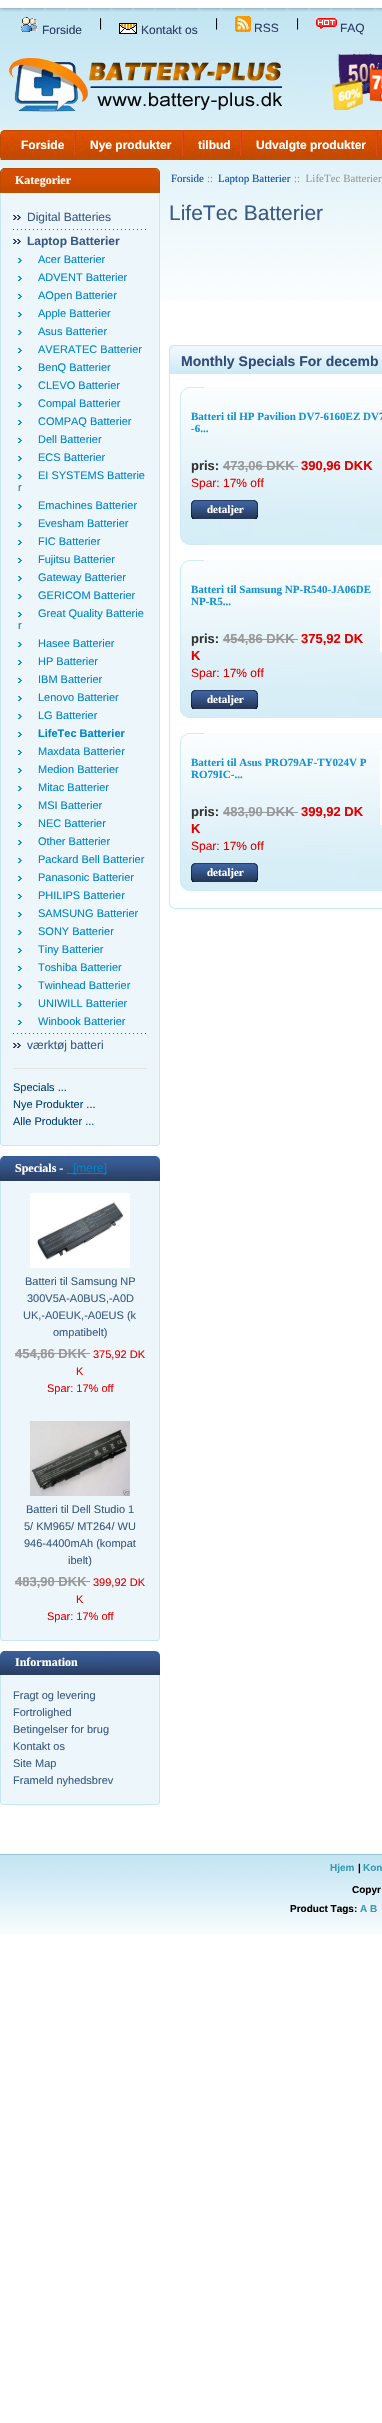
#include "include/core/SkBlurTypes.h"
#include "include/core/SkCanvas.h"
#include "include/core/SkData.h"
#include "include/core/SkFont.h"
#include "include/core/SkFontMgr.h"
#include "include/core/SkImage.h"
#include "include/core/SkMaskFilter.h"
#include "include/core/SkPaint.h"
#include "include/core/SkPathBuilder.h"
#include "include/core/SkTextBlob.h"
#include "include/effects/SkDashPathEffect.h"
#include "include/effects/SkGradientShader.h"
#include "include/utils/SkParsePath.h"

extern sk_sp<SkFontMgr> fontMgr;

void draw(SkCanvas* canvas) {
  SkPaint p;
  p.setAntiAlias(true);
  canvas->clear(SK_ColorWHITE);
  canvas->drawImageRect(SkImages::DeferredFromEncodedData(SkData::MakeFromFileName("images/1.png")), SkRect::MakeLTRB(0, 8, 382, 301), SkSamplingOptions());
  canvas->drawImageRect(SkImages::DeferredFromEncodedData(SkData::MakeFromFileName("images/2.png")), SkRect::MakeLTRB(21, 17, 37, 32), SkSamplingOptions());
  canvas->drawImageRect(SkImages::DeferredFromEncodedData(SkData::MakeFromFileName("images/3.png")), SkRect::MakeLTRB(119, 23, 137, 34), SkSamplingOptions());
  canvas->drawImageRect(SkImages::DeferredFromEncodedData(SkData::MakeFromFileName("images/4.png")), SkRect::MakeLTRB(235, 16, 251, 32), SkSamplingOptions());
  canvas->drawImageRect(SkImages::DeferredFromEncodedData(SkData::MakeFromFileName("images/5.png")), SkRect::MakeLTRB(316, 18, 337, 30), SkSamplingOptions());
  canvas->drawImageRect(SkImages::DeferredFromEncodedData(SkData::MakeFromFileName("images/6.png")), SkRect::MakeLTRB(8, 58, 282, 112), SkSamplingOptions());
  canvas->drawImageRect(SkImages::DeferredFromEncodedData(SkData::MakeFromFileName("images/7.png")), SkRect::MakeLTRB(332, 50, 382, 110), SkSamplingOptions());
  canvas->drawImageRect(SkImages::DeferredFromEncodedData(SkData::MakeFromFileName("images/8.png")), SkRect::MakeLTRB(5, 130, 382, 160), SkSamplingOptions());
  canvas->drawImageRect(SkImages::DeferredFromEncodedData(SkData::MakeFromFileName("images/9.png")), SkRect::MakeLTRB(0, 130, 5, 160), SkSamplingOptions());
  canvas->drawImageRect(SkImages::DeferredFromEncodedData(SkData::MakeFromFileName("images/10.png")), SkRect::MakeLTRB(74, 130, 76, 156), SkSamplingOptions());
  canvas->drawImageRect(SkImages::DeferredFromEncodedData(SkData::MakeFromFileName("images/10.png")), SkRect::MakeLTRB(182, 130, 184, 156), SkSamplingOptions());
  canvas->drawImageRect(SkImages::DeferredFromEncodedData(SkData::MakeFromFileName("images/10.png")), SkRect::MakeLTRB(240, 130, 242, 156), SkSamplingOptions());
  canvas->drawImageRect(SkImages::DeferredFromEncodedData(SkData::MakeFromFileName("images/10.png")), SkRect::MakeLTRB(376, 130, 378, 156), SkSamplingOptions());
  p.setColor(SkColorSetRGB(237, 246, 251));
  canvas->drawRect(SkRect::MakeLTRB(1, 193, 159, 1142), p);
  canvas->drawImageRect(SkImages::DeferredFromEncodedData(SkData::MakeFromFileName("images/11.png")), SkRect::MakeLTRB(0, 168, 3, 193), SkSamplingOptions());
  canvas->drawImageRect(SkImages::DeferredFromEncodedData(SkData::MakeFromFileName("images/12.png")), SkRect::MakeLTRB(3, 168, 160, 193), SkSamplingOptions());
  p.setColor(SkColorSetRGB(200, 231, 245));
  canvas->drawRect(SkRect::MakeLTRB(159, 193, 160, 1142), p);
  canvas->drawRect(SkRect::MakeLTRB(0, 193, 1, 1142), p);
  canvas->drawImageRect(SkImages::DeferredFromEncodedData(SkData::MakeFromFileName("images/13.png")), SkRect::MakeLTRB(13, 215, 21, 220), SkSamplingOptions());
  canvas->drawImageRect(SkImages::DeferredFromEncodedData(SkData::MakeFromFileName("images/14.png")), SkRect::MakeLTRB(13, 229, 146, 230), SkSamplingOptions());
  canvas->drawImageRect(SkImages::DeferredFromEncodedData(SkData::MakeFromFileName("images/13.png")), SkRect::MakeLTRB(13, 239, 21, 244), SkSamplingOptions());
  canvas->drawImageRect(SkImages::DeferredFromEncodedData(SkData::MakeFromFileName("images/15.png")), SkRect::MakeLTRB(18, 258, 22, 263), SkSamplingOptions());
  canvas->drawImageRect(SkImages::DeferredFromEncodedData(SkData::MakeFromFileName("images/15.png")), SkRect::MakeLTRB(18, 276, 22, 281), SkSamplingOptions());
  canvas->drawImageRect(SkImages::DeferredFromEncodedData(SkData::MakeFromFileName("images/15.png")), SkRect::MakeLTRB(18, 294, 22, 299), SkSamplingOptions());
  canvas->drawImageRect(SkImages::DeferredFromEncodedData(SkData::MakeFromFileName("images/15.png")), SkRect::MakeLTRB(18, 312, 22, 317), SkSamplingOptions());
  canvas->drawImageRect(SkImages::DeferredFromEncodedData(SkData::MakeFromFileName("images/15.png")), SkRect::MakeLTRB(18, 330, 22, 335), SkSamplingOptions());
  canvas->drawImageRect(SkImages::DeferredFromEncodedData(SkData::MakeFromFileName("images/15.png")), SkRect::MakeLTRB(18, 348, 22, 353), SkSamplingOptions());
  canvas->drawImageRect(SkImages::DeferredFromEncodedData(SkData::MakeFromFileName("images/15.png")), SkRect::MakeLTRB(18, 366, 22, 371), SkSamplingOptions());
  canvas->drawImageRect(SkImages::DeferredFromEncodedData(SkData::MakeFromFileName("images/15.png")), SkRect::MakeLTRB(18, 384, 22, 389), SkSamplingOptions());
  canvas->drawImageRect(SkImages::DeferredFromEncodedData(SkData::MakeFromFileName("images/15.png")), SkRect::MakeLTRB(18, 402, 22, 407), SkSamplingOptions());
  canvas->drawImageRect(SkImages::DeferredFromEncodedData(SkData::MakeFromFileName("images/15.png")), SkRect::MakeLTRB(18, 420, 22, 425), SkSamplingOptions());
  canvas->drawImageRect(SkImages::DeferredFromEncodedData(SkData::MakeFromFileName("images/15.png")), SkRect::MakeLTRB(18, 438, 22, 443), SkSamplingOptions());
  canvas->drawImageRect(SkImages::DeferredFromEncodedData(SkData::MakeFromFileName("images/15.png")), SkRect::MakeLTRB(18, 456, 22, 461), SkSamplingOptions());
  canvas->drawImageRect(SkImages::DeferredFromEncodedData(SkData::MakeFromFileName("images/15.png")), SkRect::MakeLTRB(18, 474, 22, 479), SkSamplingOptions());
  canvas->drawImageRect(SkImages::DeferredFromEncodedData(SkData::MakeFromFileName("images/15.png")), SkRect::MakeLTRB(18, 504, 22, 509), SkSamplingOptions());
  canvas->drawImageRect(SkImages::DeferredFromEncodedData(SkData::MakeFromFileName("images/15.png")), SkRect::MakeLTRB(18, 522, 22, 527), SkSamplingOptions());
  canvas->drawImageRect(SkImages::DeferredFromEncodedData(SkData::MakeFromFileName("images/15.png")), SkRect::MakeLTRB(18, 540, 22, 545), SkSamplingOptions());
  canvas->drawImageRect(SkImages::DeferredFromEncodedData(SkData::MakeFromFileName("images/15.png")), SkRect::MakeLTRB(18, 558, 22, 563), SkSamplingOptions());
  canvas->drawImageRect(SkImages::DeferredFromEncodedData(SkData::MakeFromFileName("images/15.png")), SkRect::MakeLTRB(18, 576, 22, 581), SkSamplingOptions());
  canvas->drawImageRect(SkImages::DeferredFromEncodedData(SkData::MakeFromFileName("images/15.png")), SkRect::MakeLTRB(18, 594, 22, 599), SkSamplingOptions());
  canvas->drawImageRect(SkImages::DeferredFromEncodedData(SkData::MakeFromFileName("images/15.png")), SkRect::MakeLTRB(18, 612, 22, 617), SkSamplingOptions());
  canvas->drawImageRect(SkImages::DeferredFromEncodedData(SkData::MakeFromFileName("images/15.png")), SkRect::MakeLTRB(18, 642, 22, 647), SkSamplingOptions());
  canvas->drawImageRect(SkImages::DeferredFromEncodedData(SkData::MakeFromFileName("images/15.png")), SkRect::MakeLTRB(18, 660, 22, 665), SkSamplingOptions());
  canvas->drawImageRect(SkImages::DeferredFromEncodedData(SkData::MakeFromFileName("images/15.png")), SkRect::MakeLTRB(18, 678, 22, 683), SkSamplingOptions());
  canvas->drawImageRect(SkImages::DeferredFromEncodedData(SkData::MakeFromFileName("images/15.png")), SkRect::MakeLTRB(18, 696, 22, 701), SkSamplingOptions());
  canvas->drawImageRect(SkImages::DeferredFromEncodedData(SkData::MakeFromFileName("images/15.png")), SkRect::MakeLTRB(18, 714, 22, 719), SkSamplingOptions());
  canvas->drawImageRect(SkImages::DeferredFromEncodedData(SkData::MakeFromFileName("images/15.png")), SkRect::MakeLTRB(18, 732, 22, 737), SkSamplingOptions());
  canvas->drawImageRect(SkImages::DeferredFromEncodedData(SkData::MakeFromFileName("images/15.png")), SkRect::MakeLTRB(18, 750, 22, 755), SkSamplingOptions());
  canvas->drawImageRect(SkImages::DeferredFromEncodedData(SkData::MakeFromFileName("images/15.png")), SkRect::MakeLTRB(18, 768, 22, 773), SkSamplingOptions());
  canvas->drawImageRect(SkImages::DeferredFromEncodedData(SkData::MakeFromFileName("images/15.png")), SkRect::MakeLTRB(18, 786, 22, 791), SkSamplingOptions());
  canvas->drawImageRect(SkImages::DeferredFromEncodedData(SkData::MakeFromFileName("images/15.png")), SkRect::MakeLTRB(18, 804, 22, 809), SkSamplingOptions());
  canvas->drawImageRect(SkImages::DeferredFromEncodedData(SkData::MakeFromFileName("images/15.png")), SkRect::MakeLTRB(18, 822, 22, 827), SkSamplingOptions());
  canvas->drawImageRect(SkImages::DeferredFromEncodedData(SkData::MakeFromFileName("images/15.png")), SkRect::MakeLTRB(18, 840, 22, 845), SkSamplingOptions());
  canvas->drawImageRect(SkImages::DeferredFromEncodedData(SkData::MakeFromFileName("images/15.png")), SkRect::MakeLTRB(18, 858, 22, 863), SkSamplingOptions());
  canvas->drawImageRect(SkImages::DeferredFromEncodedData(SkData::MakeFromFileName("images/15.png")), SkRect::MakeLTRB(18, 876, 22, 881), SkSamplingOptions());
  canvas->drawImageRect(SkImages::DeferredFromEncodedData(SkData::MakeFromFileName("images/15.png")), SkRect::MakeLTRB(18, 894, 22, 899), SkSamplingOptions());
  canvas->drawImageRect(SkImages::DeferredFromEncodedData(SkData::MakeFromFileName("images/15.png")), SkRect::MakeLTRB(18, 912, 22, 917), SkSamplingOptions());
  canvas->drawImageRect(SkImages::DeferredFromEncodedData(SkData::MakeFromFileName("images/15.png")), SkRect::MakeLTRB(18, 930, 22, 935), SkSamplingOptions());
  canvas->drawImageRect(SkImages::DeferredFromEncodedData(SkData::MakeFromFileName("images/15.png")), SkRect::MakeLTRB(18, 948, 22, 953), SkSamplingOptions());
  canvas->drawImageRect(SkImages::DeferredFromEncodedData(SkData::MakeFromFileName("images/15.png")), SkRect::MakeLTRB(18, 966, 22, 971), SkSamplingOptions());
  canvas->drawImageRect(SkImages::DeferredFromEncodedData(SkData::MakeFromFileName("images/15.png")), SkRect::MakeLTRB(18, 984, 22, 989), SkSamplingOptions());
  canvas->drawImageRect(SkImages::DeferredFromEncodedData(SkData::MakeFromFileName("images/15.png")), SkRect::MakeLTRB(18, 1002, 22, 1007), SkSamplingOptions());
  canvas->drawImageRect(SkImages::DeferredFromEncodedData(SkData::MakeFromFileName("images/15.png")), SkRect::MakeLTRB(18, 1020, 22, 1025), SkSamplingOptions());
  canvas->drawImageRect(SkImages::DeferredFromEncodedData(SkData::MakeFromFileName("images/14.png")), SkRect::MakeLTRB(13, 1033, 146, 1034), SkSamplingOptions());
  canvas->drawImageRect(SkImages::DeferredFromEncodedData(SkData::MakeFromFileName("images/13.png")), SkRect::MakeLTRB(13, 1043, 21, 1048), SkSamplingOptions());
  p.setColor(SkColorSetRGB(228, 228, 228));
  canvas->drawRect(SkRect::MakeLTRB(13, 1068, 147, 1069), p);
  canvas->drawImageRect(SkImages::DeferredFromEncodedData(SkData::MakeFromFileName("images/16.png")), SkRect::MakeLTRB(0, 1142, 20, 1146), SkSamplingOptions());
  canvas->drawImageRect(SkImages::DeferredFromEncodedData(SkData::MakeFromFileName("images/17.png")), SkRect::MakeLTRB(20, 1142, 160, 1146), SkSamplingOptions());
  p.setColor(SkColorSetRGB(237, 246, 251));
  canvas->drawRect(SkRect::MakeLTRB(0, 1156, 160, 1637), p);
  canvas->drawImageRect(SkImages::DeferredFromEncodedData(SkData::MakeFromFileName("images/18.png")), SkRect::MakeLTRB(0, 1156, 3, 1181), SkSamplingOptions());
  canvas->drawImageRect(SkImages::DeferredFromEncodedData(SkData::MakeFromFileName("images/19.png")), SkRect::MakeLTRB(3, 1156, 160, 1181), SkSamplingOptions());
  p.setColor(SkColorSetRGB(0, 132, 201));
  canvas->drawRect(SkRect::MakeLTRB(67, 1173, 107, 1174), p);
  p.setColor(SkColorSetRGB(200, 231, 245));
  canvas->drawRect(SkRect::MakeLTRB(159, 1181, 160, 1637), p);
  canvas->drawRect(SkRect::MakeLTRB(0, 1181, 1, 1637), p);
  canvas->drawImageRect(SkImages::DeferredFromEncodedData(SkData::MakeFromFileName("images/20.png")), SkRect::MakeLTRB(30, 1193, 130, 1268), SkSamplingOptions());
  p.setColor(SkColorSetRGB(153, 153, 153));
  canvas->drawRect(SkRect::MakeLTRB(15, 1353, 90, 1354), p);
  canvas->drawImageRect(SkImages::DeferredFromEncodedData(SkData::MakeFromFileName("images/21.png")), SkRect::MakeLTRB(30, 1421, 130, 1496), SkSamplingOptions());
  canvas->drawRect(SkRect::MakeLTRB(15, 1581, 90, 1582), p);
  canvas->drawImageRect(SkImages::DeferredFromEncodedData(SkData::MakeFromFileName("images/16.png")), SkRect::MakeLTRB(0, 1637, 20, 1641), SkSamplingOptions());
  canvas->drawImageRect(SkImages::DeferredFromEncodedData(SkData::MakeFromFileName("images/17.png")), SkRect::MakeLTRB(20, 1637, 160, 1641), SkSamplingOptions());
  p.setColor(SkColorSetRGB(237, 246, 251));
  canvas->drawRect(SkRect::MakeLTRB(0, 1651, 160, 1801), p);
  canvas->drawImageRect(SkImages::DeferredFromEncodedData(SkData::MakeFromFileName("images/22.png")), SkRect::MakeLTRB(0, 1651, 3, 1675), SkSamplingOptions());
  canvas->drawImageRect(SkImages::DeferredFromEncodedData(SkData::MakeFromFileName("images/23.png")), SkRect::MakeLTRB(3, 1651, 160, 1675), SkSamplingOptions());
  p.setColor(SkColorSetRGB(200, 231, 245));
  canvas->drawRect(SkRect::MakeLTRB(159, 1675, 160, 1801), p);
  canvas->drawRect(SkRect::MakeLTRB(0, 1675, 1, 1801), p);
  canvas->drawImageRect(SkImages::DeferredFromEncodedData(SkData::MakeFromFileName("images/16.png")), SkRect::MakeLTRB(0, 1801, 20, 1805), SkSamplingOptions());
  canvas->drawImageRect(SkImages::DeferredFromEncodedData(SkData::MakeFromFileName("images/17.png")), SkRect::MakeLTRB(20, 1801, 160, 1805), SkSamplingOptions());
  canvas->drawRect(SkRect::MakeLTRB(169, 374, 170, 901), p);
  canvas->drawImageRect(SkImages::DeferredFromEncodedData(SkData::MakeFromFileName("images/24.png")), SkRect::MakeLTRB(169, 345, 180, 374), SkSamplingOptions());
  canvas->drawImageRect(SkImages::DeferredFromEncodedData(SkData::MakeFromFileName("images/25.png")), SkRect::MakeLTRB(180, 345, 382, 374), SkSamplingOptions());
  canvas->drawImageRect(SkImages::DeferredFromEncodedData(SkData::MakeFromFileName("images/26.png")), SkRect::MakeLTRB(180, 387, 204, 396), SkSamplingOptions());
  p.setColor(SkColorSetRGB(250, 253, 254));
  canvas->drawRect(SkRect::MakeLTRB(204, 387, 382, 396), p);
  canvas->drawImageRect(SkImages::DeferredFromEncodedData(SkData::MakeFromFileName("images/27.png")), SkRect::MakeLTRB(180, 396, 190, 536), SkSamplingOptions());
  canvas->drawImageRect(SkImages::DeferredFromEncodedData(SkData::MakeFromFileName("images/28.png")), SkRect::MakeLTRB(190, 396, 382, 536), SkSamplingOptions());
  p.setColor(SkColorSetRGB(153, 153, 153));
  canvas->drawRect(SkRect::MakeLTRB(223, 466, 298, 467), p);
  canvas->drawImageRect(SkImages::DeferredFromEncodedData(SkData::MakeFromFileName("images/29.png")), SkRect::MakeLTRB(191, 500, 198, 519), SkSamplingOptions());
  canvas->drawImageRect(SkImages::DeferredFromEncodedData(SkData::MakeFromFileName("images/30.png")), SkRect::MakeLTRB(198, 500, 258, 519), SkSamplingOptions());
  canvas->drawImageRect(SkImages::DeferredFromEncodedData(SkData::MakeFromFileName("images/31.png")), SkRect::MakeLTRB(180, 536, 211, 545), SkSamplingOptions());
  p.setColor(SkColorSetRGB(213, 237, 246));
  canvas->drawRect(SkRect::MakeLTRB(211, 536, 382, 545), p);
  canvas->drawImageRect(SkImages::DeferredFromEncodedData(SkData::MakeFromFileName("images/26.png")), SkRect::MakeLTRB(180, 560, 204, 569), SkSamplingOptions());
  p.setColor(SkColorSetRGB(250, 253, 254));
  canvas->drawRect(SkRect::MakeLTRB(204, 560, 382, 569), p);
  canvas->drawImageRect(SkImages::DeferredFromEncodedData(SkData::MakeFromFileName("images/27.png")), SkRect::MakeLTRB(180, 569, 190, 709), SkSamplingOptions());
  canvas->drawImageRect(SkImages::DeferredFromEncodedData(SkData::MakeFromFileName("images/28.png")), SkRect::MakeLTRB(190, 569, 382, 709), SkSamplingOptions());
  p.setColor(SK_ColorWHITE);
  canvas->drawRect(SkRect::MakeLTRB(380, 577, 382, 652), p);
  p.setColor(SkColorSetRGB(153, 153, 153));
  canvas->drawRect(SkRect::MakeLTRB(223, 639, 298, 640), p);
  canvas->drawImageRect(SkImages::DeferredFromEncodedData(SkData::MakeFromFileName("images/32.png")), SkRect::MakeLTRB(191, 690, 198, 709), SkSamplingOptions());
  canvas->drawImageRect(SkImages::DeferredFromEncodedData(SkData::MakeFromFileName("images/33.png")), SkRect::MakeLTRB(198, 690, 258, 709), SkSamplingOptions());
  canvas->drawImageRect(SkImages::DeferredFromEncodedData(SkData::MakeFromFileName("images/31.png")), SkRect::MakeLTRB(180, 709, 211, 718), SkSamplingOptions());
  p.setColor(SkColorSetRGB(213, 237, 246));
  canvas->drawRect(SkRect::MakeLTRB(211, 709, 382, 718), p);
  canvas->drawImageRect(SkImages::DeferredFromEncodedData(SkData::MakeFromFileName("images/26.png")), SkRect::MakeLTRB(180, 733, 204, 742), SkSamplingOptions());
  p.setColor(SkColorSetRGB(250, 253, 254));
  canvas->drawRect(SkRect::MakeLTRB(204, 733, 382, 742), p);
  canvas->drawImageRect(SkImages::DeferredFromEncodedData(SkData::MakeFromFileName("images/27.png")), SkRect::MakeLTRB(180, 742, 190, 882), SkSamplingOptions());
  canvas->drawImageRect(SkImages::DeferredFromEncodedData(SkData::MakeFromFileName("images/28.png")), SkRect::MakeLTRB(190, 742, 382, 882), SkSamplingOptions());
  p.setColor(SK_ColorWHITE);
  canvas->drawRect(SkRect::MakeLTRB(380, 750, 382, 825), p);
  p.setColor(SkColorSetRGB(153, 153, 153));
  canvas->drawRect(SkRect::MakeLTRB(223, 812, 298, 813), p);
  canvas->drawImageRect(SkImages::DeferredFromEncodedData(SkData::MakeFromFileName("images/32.png")), SkRect::MakeLTRB(191, 863, 198, 882), SkSamplingOptions());
  canvas->drawImageRect(SkImages::DeferredFromEncodedData(SkData::MakeFromFileName("images/33.png")), SkRect::MakeLTRB(198, 863, 258, 882), SkSamplingOptions());
  canvas->drawImageRect(SkImages::DeferredFromEncodedData(SkData::MakeFromFileName("images/31.png")), SkRect::MakeLTRB(180, 882, 211, 891), SkSamplingOptions());
  p.setColor(SkColorSetRGB(213, 237, 246));
  canvas->drawRect(SkRect::MakeLTRB(211, 882, 382, 891), p);
  canvas->drawImageRect(SkImages::DeferredFromEncodedData(SkData::MakeFromFileName("images/34.png")), SkRect::MakeLTRB(169, 901, 184, 909), SkSamplingOptions());
  p.setColor(SkColorSetRGB(200, 231, 245));
  canvas->drawRect(SkRect::MakeLTRB(184, 908, 382, 909), p);
  canvas->drawImageRect(SkImages::DeferredFromEncodedData(SkData::MakeFromFileName("images/35.png")), SkRect::MakeLTRB(0, 1854, 382, 1934), SkSamplingOptions());
  SkFont font1(fontMgr->matchFamilyStyle("Liberation Sans", SkFontStyle::Normal()), 12);
  font1.setSubpixel(true);
  p.setColor(SkColorSetRGB(41, 59, 95));
  canvas->drawString("Forside", 42, 34, font1, p);
  p.setColor(SK_ColorBLACK);
  canvas->drawString("|", 99, 27, font1, p);
  p.setColor(SkColorSetRGB(41, 59, 95));
  canvas->drawString("Kontakt os", 141, 34, font1, p);
  p.setColor(SK_ColorBLACK);
  canvas->drawString("|", 215, 27, font1, p);
  p.setColor(SkColorSetRGB(41, 59, 95));
  canvas->drawString("RSS", 254, 32, font1, p);
  p.setColor(SK_ColorBLACK);
  canvas->drawString("|", 296, 27, font1, p);
  p.setColor(SkColorSetRGB(41, 59, 95));
  canvas->drawString("FAQ", 340, 32, font1, p);
  SkFont font2(fontMgr->matchFamilyStyle("Liberation Sans", SkFontStyle::Bold()), 12);
  font2.setSubpixel(true);
  p.setColor(SK_ColorWHITE);
  canvas->drawString("Forside", 21, 149, font2, p);
  canvas->drawString("Nye produkter", 90, 149, font2, p);
  canvas->drawString("tilbud", 198, 149, font2, p);
  canvas->drawString("Udvalgte produkter", 256, 149, font2, p);
  SkFont font3(fontMgr->matchFamilyStyle("Liberation Serif", SkFontStyle::Bold()), 12);
  font3.setSubpixel(true);
  canvas->drawString("Kategorier", 15, 184, font3, p);
  p.setColor(SkColorSetRGB(57, 90, 133));
  canvas->drawString("Digital Batteries", 27, 221, font1, p);
  canvas->drawString("Laptop Batterier", 27, 245, font2, p);
  SkFont font4(fontMgr->matchFamilyStyle("Liberation Sans", SkFontStyle::Normal()), 11);
  font4.setSubpixel(true);
  p.setColor(SkColorSetRGB(0, 132, 201));
  canvas->drawString("Acer Batterier", 38, 263, font4, p);
  canvas->drawString("ADVENT Batterier", 38, 281, font4, p);
  canvas->drawString("AOpen Batterier", 38, 299, font4, p);
  canvas->drawString("Apple Batterier", 38, 317, font4, p);
  canvas->drawString("Asus Batterier", 38, 335, font4, p);
  canvas->drawString("AVERATEC Batterier", 38, 353, font4, p);
  canvas->drawString("BenQ Batterier", 38, 371, font4, p);
  canvas->drawString("CLEVO Batterier", 38, 389, font4, p);
  canvas->drawString("Compal Batterier", 38, 407, font4, p);
  canvas->drawString("COMPAQ Batterier", 38, 425, font4, p);
  canvas->drawString("Dell Batterier", 38, 443, font4, p);
  canvas->drawString("ECS Batterier", 38, 461, font4, p);
  canvas->drawString("EI SYSTEMS Batterie", 38, 479, font4, p);
  canvas->drawString("r", 18, 491, font4, p);
  canvas->drawString("Emachines Batterier", 38, 509, font4, p);
  canvas->drawString("Evesham Batterier", 38, 527, font4, p);
  canvas->drawString("FIC Batterier", 38, 545, font4, p);
  canvas->drawString("Fujitsu Batterier", 38, 563, font4, p);
  canvas->drawString("Gateway Batterier", 38, 581, font4, p);
  canvas->drawString("GERICOM Batterier", 38, 599, font4, p);
  canvas->drawString("Great Quality Batterie", 38, 617, font4, p);
  canvas->drawString("r", 18, 629, font4, p);
  canvas->drawString("Hasee Batterier", 38, 647, font4, p);
  canvas->drawString("HP Batterier", 38, 665, font4, p);
  canvas->drawString("IBM Batterier", 38, 683, font4, p);
  canvas->drawString("Lenovo Batterier", 38, 701, font4, p);
  canvas->drawString("LG Batterier", 38, 719, font4, p);
  SkFont font5(fontMgr->matchFamilyStyle("Liberation Sans", SkFontStyle::Bold()), 11);
  font5.setSubpixel(true);
  canvas->drawString("LifeTec Batterier", 38, 737, font5, p);
  canvas->drawString("Maxdata Batterier", 38, 755, font4, p);
  canvas->drawString("Medion Batterier", 38, 773, font4, p);
  canvas->drawString("Mitac Batterier", 38, 791, font4, p);
  canvas->drawString("MSI Batterier", 38, 809, font4, p);
  canvas->drawString("NEC Batterier", 38, 827, font4, p);
  canvas->drawString("Other Batterier", 38, 845, font4, p);
  canvas->drawString("Packard Bell Batterier", 38, 863, font4, p);
  canvas->drawString("Panasonic Batterier", 38, 881, font4, p);
  canvas->drawString("PHILIPS Batterier", 38, 899, font4, p);
  canvas->drawString("SAMSUNG Batterier", 38, 917, font4, p);
  canvas->drawString("SONY Batterier", 38, 935, font4, p);
  canvas->drawString("Tiny Batterier", 38, 953, font4, p);
  canvas->drawString("Toshiba Batterier", 38, 971, font4, p);
  canvas->drawString("Twinhead Batterier", 38, 989, font4, p);
  canvas->drawString("UNIWILL Batterier", 38, 1007, font4, p);
  canvas->drawString("Winbook Batterier", 38, 1025, font4, p);
  p.setColor(SkColorSetRGB(57, 90, 133));
  canvas->drawString("værktøj batteri", 27, 1049, font1, p);
  p.setColor(SkColorSetRGB(0, 64, 128));
  canvas->drawString("Specials ...", 13, 1091, font4, p);
  canvas->drawString("Nye Produkter ...", 13, 1108, font4, p);
  canvas->drawString("Alle Produkter ...", 13, 1125, font4, p);
  p.setColor(SK_ColorWHITE);
  canvas->drawString("Specials -", 15, 1172, font3, p);
  p.setColor(SkColorSetRGB(0, 132, 201));
  canvas->drawString("[mere]", 73, 1172, font1, p);
  p.setColor(SkColorSetRGB(57, 90, 133));
  canvas->drawString("Batteri til Samsung NP", 25, 1285, font4, p);
  canvas->drawString("300V5A-A0BUS,-A0D", 27, 1302, font4, p);
  canvas->drawString("UK,-A0EUK,-A0EUS (k", 23, 1319, font4, p);
  canvas->drawString("ompatibelt)", 53, 1336, font4, p);
  SkFont font6(fontMgr->matchFamilyStyle("Liberation Sans", SkFontStyle::Bold()), 13);
  font6.setSubpixel(true);
  p.setColor(SkColorSetRGB(153, 153, 153));
  canvas->drawString("454,86 DKK", 15, 1358, font6, p);
  p.setColor(SkColorSetRGB(227, 0, 0));
  canvas->drawString("375,92 DK", 93, 1358, font4, p);
  canvas->drawString("K", 76, 1375, font4, p);
  canvas->drawString("Spar: 17% off", 47, 1392, font4, p);
  p.setColor(SkColorSetRGB(57, 90, 133));
  canvas->drawString("Batteri til Dell Studio 1", 26, 1513, font4, p);
  canvas->drawString("5/ KM965/ MT264/ WU", 24, 1530, font4, p);
  canvas->drawString("946-4400mAh (kompat", 24, 1547, font4, p);
  canvas->drawString("ibelt)", 68, 1564, font4, p);
  p.setColor(SkColorSetRGB(153, 153, 153));
  canvas->drawString("483,90 DKK", 15, 1586, font6, p);
  p.setColor(SkColorSetRGB(227, 0, 0));
  canvas->drawString("399,92 DK", 93, 1586, font4, p);
  canvas->drawString("K", 76, 1603, font4, p);
  canvas->drawString("Spar: 17% off", 47, 1620, font4, p);
  p.setColor(SK_ColorWHITE);
  canvas->drawString("Information", 15, 1666, font3, p);
  p.setColor(SkColorSetRGB(57, 90, 133));
  canvas->drawString("Fragt og levering", 13, 1699, font4, p);
  canvas->drawString("Fortrolighed", 13, 1716, font4, p);
  canvas->drawString("Betingelser for brug", 13, 1733, font4, p);
  canvas->drawString("Kontakt os", 13, 1750, font4, p);
  canvas->drawString("Site Map", 13, 1767, font4, p);
  canvas->drawString("Frameld nyhedsbrev", 13, 1784, font4, p);
  SkFont font7(fontMgr->matchFamilyStyle("Liberation Serif", SkFontStyle::Normal()), 11);
  font7.setSubpixel(true);
  p.setColor(SkColorSetRGB(12, 77, 163));
  canvas->drawString("Forside", 171, 182, font7, p);
  p.setColor(SkColorSetRGB(153, 153, 153));
  canvas->drawString("::", 207, 182, font7, p);
  p.setColor(SkColorSetRGB(12, 77, 163));
  canvas->drawString("Laptop Batterier", 218, 182, font7, p);
  p.setColor(SkColorSetRGB(153, 153, 153));
  canvas->drawString("::  LifeTec Batterier", 294, 182, font7, p);
  SkFont font8(fontMgr->matchFamilyStyle("Liberation Sans", SkFontStyle::Normal()), 21);
  font8.setSubpixel(true);
  p.setColor(SkColorSetRGB(57, 90, 133));
  canvas->drawString("LifeTec Batterier", 169, 220, font8, p);
  SkFont font9(fontMgr->matchFamilyStyle("Liberation Sans", SkFontStyle::Bold()), 14);
  font9.setSubpixel(true);
  p.setColor(SkColorSetRGB(47, 76, 124));
  canvas->drawString("Monthly Specials For decemb", 181, 366, font9, p);
  SkFont font10(fontMgr->matchFamilyStyle("Liberation Serif", SkFontStyle::Bold()), 11);
  font10.setSubpixel(true);
  p.setColor(SkColorSetRGB(19, 147, 213));
  canvas->drawString("Batteri til HP Pavilion DV7-6160EZ DV7", 191, 420, font10, p);
  canvas->drawString("-6...", 191, 432, font10, p);
  p.setColor(SkColorSetRGB(51, 51, 51));
  canvas->drawString("pris:", 191, 470, font6, p);
  p.setColor(SkColorSetRGB(153, 153, 153));
  canvas->drawString("473,06 DKK", 223, 470, font6, p);
  p.setColor(SkColorSetRGB(227, 0, 0));
  canvas->drawString("390,96 DKK", 301, 470, font6, p);
  canvas->drawString("Spar: 17% off", 191, 487, font1, p);
  p.setColor(SK_ColorWHITE);
  canvas->drawString("detaljer", 207, 513, font10, p);
  p.setColor(SkColorSetRGB(19, 147, 213));
  canvas->drawString("Batteri til Samsung NP-R540-JA06DE", 191, 593, font10, p);
  canvas->drawString("NP-R5...", 191, 605, font10, p);
  p.setColor(SkColorSetRGB(51, 51, 51));
  canvas->drawString("pris:", 191, 643, font6, p);
  p.setColor(SkColorSetRGB(153, 153, 153));
  canvas->drawString("454,86 DKK", 223, 643, font6, p);
  p.setColor(SkColorSetRGB(227, 0, 0));
  canvas->drawString("375,92 DK", 301, 643, font6, p);
  canvas->drawString("K", 191, 660, font6, p);
  canvas->drawString("Spar: 17% off", 191, 677, font1, p);
  p.setColor(SK_ColorWHITE);
  canvas->drawString("detaljer", 207, 703, font10, p);
  p.setColor(SkColorSetRGB(19, 147, 213));
  canvas->drawString("Batteri til Asus PRO79AF-TY024V P", 191, 766, font10, p);
  canvas->drawString("RO79IC-...", 191, 778, font10, p);
  p.setColor(SkColorSetRGB(51, 51, 51));
  canvas->drawString("pris:", 191, 816, font6, p);
  p.setColor(SkColorSetRGB(153, 153, 153));
  canvas->drawString("483,90 DKK", 223, 816, font6, p);
  p.setColor(SkColorSetRGB(227, 0, 0));
  canvas->drawString("399,92 DK", 301, 816, font6, p);
  canvas->drawString("K", 191, 833, font6, p);
  canvas->drawString("Spar: 17% off", 191, 850, font1, p);
  p.setColor(SK_ColorWHITE);
  canvas->drawString("detaljer", 207, 876, font10, p);
  SkFont font11(fontMgr->matchFamilyStyle("Liberation Sans", SkFontStyle::Bold()), 10);
  font11.setSubpixel(true);
  p.setColor(SkColorSetRGB(60, 151, 179));
  canvas->drawString("Hjem", 330, 1871, font11, p);
  p.setColor(SK_ColorBLACK);
  canvas->drawString("|", 358, 1871, font11, p);
  p.setColor(SkColorSetRGB(60, 151, 179));
  canvas->drawString("Kon", 363, 1871, font11, p);
  p.setColor(SK_ColorBLACK);
  canvas->drawString("Copyr", 352, 1893, font11, p);
  canvas->drawString("Product Tags:", 290, 1912, font11, p);
  p.setColor(SkColorSetRGB(60, 151, 179));
  canvas->drawString("A B", 360, 1912, font11, p);
}
